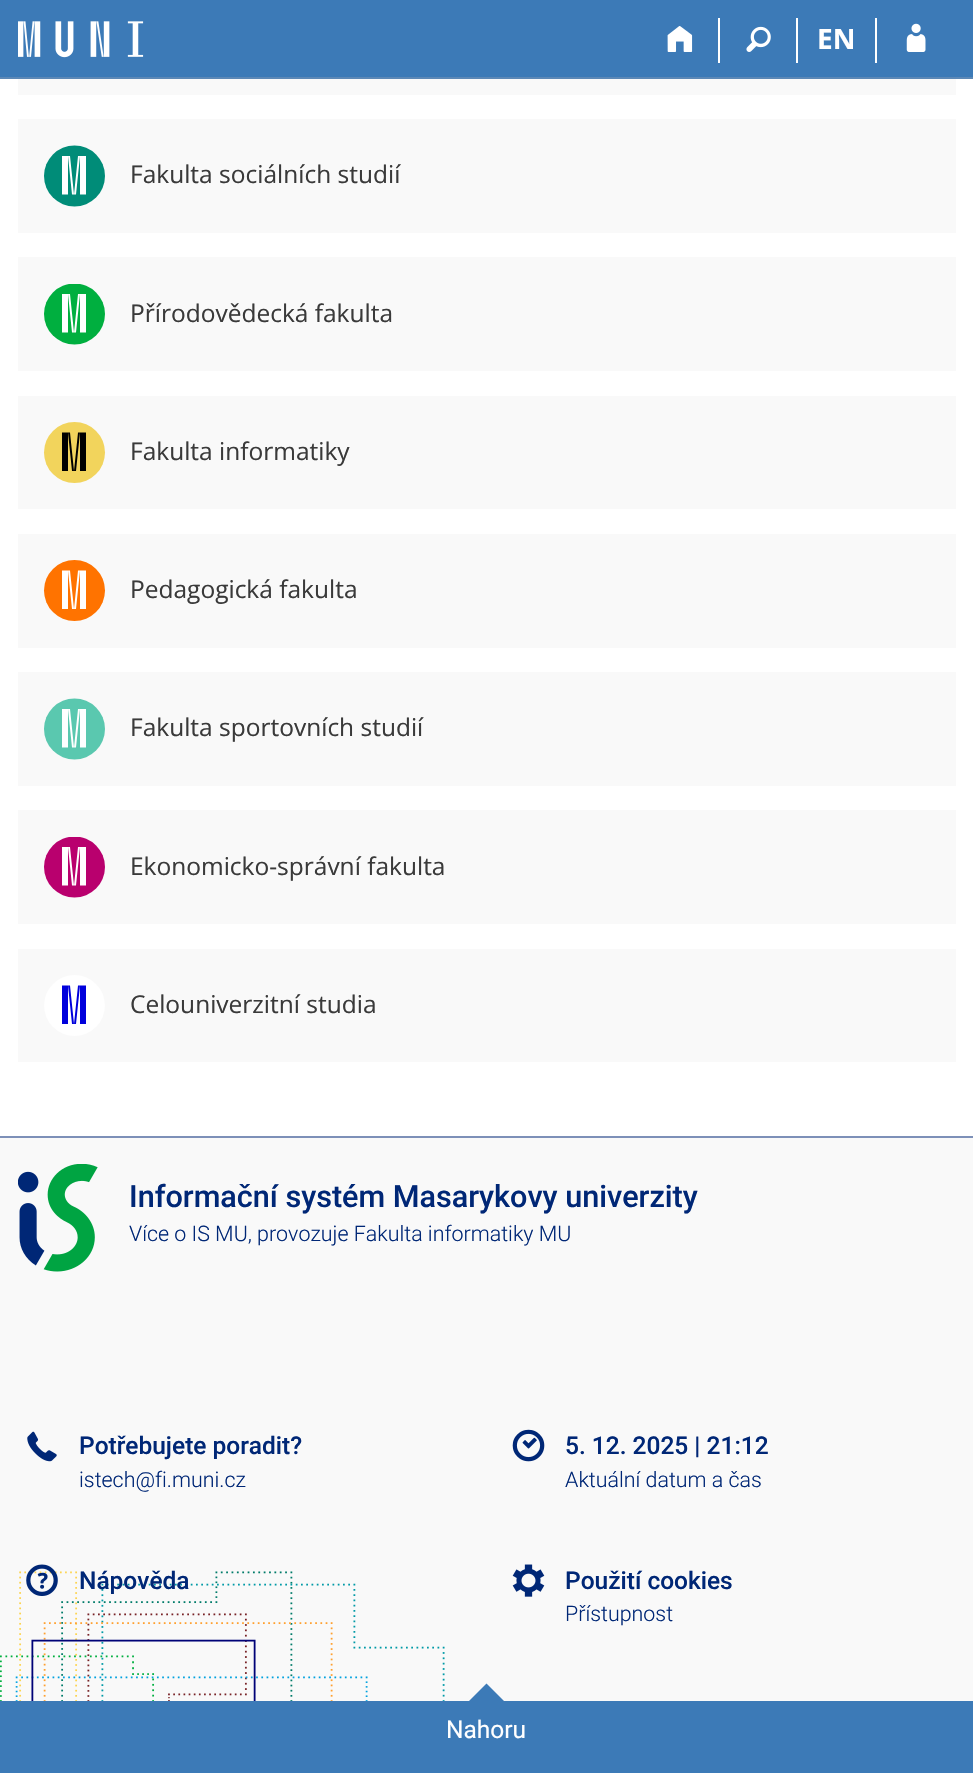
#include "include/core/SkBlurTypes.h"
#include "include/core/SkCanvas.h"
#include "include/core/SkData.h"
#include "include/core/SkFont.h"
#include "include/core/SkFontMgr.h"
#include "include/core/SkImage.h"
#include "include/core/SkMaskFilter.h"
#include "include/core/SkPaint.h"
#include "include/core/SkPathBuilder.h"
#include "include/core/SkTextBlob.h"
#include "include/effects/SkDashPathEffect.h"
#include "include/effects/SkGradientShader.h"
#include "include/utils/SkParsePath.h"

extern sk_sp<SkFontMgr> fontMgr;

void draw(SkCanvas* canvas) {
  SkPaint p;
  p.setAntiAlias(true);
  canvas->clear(SK_ColorWHITE);
  p.setColor(SkColorSetRGB(60, 122, 183));
  canvas->drawRect(SkRect::MakeLTRB(0, 0, 973, 77), p);
  p.setColor(SkColorSetRGB(92, 136, 182));
  canvas->drawRect(SkRect::MakeLTRB(0, 77, 973, 79), p);
  canvas->drawImageRect(SkImages::DeferredFromEncodedData(SkData::MakeFromFileName("images/1.png")), SkRect::MakeLTRB(18, 21, 144, 58), SkSamplingOptions());
  p.setColor(SK_ColorWHITE);
  canvas->drawRect(SkRect::MakeLTRB(718, 18, 720, 63), p);
  canvas->drawImageRect(SkImages::DeferredFromEncodedData(SkData::MakeFromFileName("images/2.png")), SkRect::MakeLTRB(667, 26, 693, 52), SkSamplingOptions());
  canvas->drawRect(SkRect::MakeLTRB(796, 18, 798, 63), p);
  canvas->drawImageRect(SkImages::DeferredFromEncodedData(SkData::MakeFromFileName("images/3.png")), SkRect::MakeLTRB(746, 26, 771, 52), SkSamplingOptions());
  canvas->drawRect(SkRect::MakeLTRB(875, 18, 877, 63), p);
  canvas->drawImageRect(SkImages::DeferredFromEncodedData(SkData::MakeFromFileName("images/4.png")), SkRect::MakeLTRB(906, 23, 926, 52), SkSamplingOptions());
  p.setColor(SkColorSetRGB(249, 249, 249));
  canvas->drawRect(SkRect::MakeLTRB(18, 79, 956, 95), p);
  canvas->drawRect(SkRect::MakeLTRB(18, 119, 956, 233), p);
  p.setColor(SkColorSetRGB(0, 140, 120));
  canvas->drawCircle(74.5f, 176, 30.5f, p);
  p.setColor(SK_ColorWHITE);
  canvas->drawPath(SkPathBuilder().moveTo(62, 156).lineTo(68, 156).lineTo(68, 194.5f).lineTo(62, 194.5f).close().moveTo(68, 156).lineTo(70, 156).lineTo(74, 194.5f).lineTo(72, 194.5f).close().moveTo(78, 156).lineTo(80, 156).lineTo(76, 194.5f).lineTo(74, 194.5f).close().moveTo(80, 156).lineTo(86, 156).lineTo(86, 194.5f).lineTo(80, 194.5f).close().detach(), p);
  p.setColor(SkColorSetRGB(249, 249, 249));
  canvas->drawRect(SkRect::MakeLTRB(18, 257, 956, 371), p);
  canvas->save();
  canvas->clipRect(SkRect::MakeLTRB(44, 284, 105, 345));
  p.setColor(SkColorSetRGB(0, 175, 63));
  canvas->drawCircle(74.5f, 314, 30.5f, p);
  canvas->restore();
  p.setColor(SK_ColorWHITE);
  canvas->drawPath(SkPathBuilder().moveTo(62, 294).lineTo(68, 294).lineTo(68, 332.5f).lineTo(62, 332.5f).close().moveTo(68, 294).lineTo(70, 294).lineTo(74, 332.5f).lineTo(72, 332.5f).close().moveTo(78, 294).lineTo(80, 294).lineTo(76, 332.5f).lineTo(74, 332.5f).close().moveTo(80, 294).lineTo(86, 294).lineTo(86, 332.5f).lineTo(80, 332.5f).close().detach(), p);
  p.setColor(SkColorSetRGB(249, 249, 249));
  canvas->drawRect(SkRect::MakeLTRB(18, 396, 956, 509), p);
  p.setColor(SkColorSetRGB(242, 212, 92));
  canvas->drawCircle(74.5f, 452.5f, 30.5f, p);
  p.setColor(SK_ColorBLACK);
  canvas->drawPath(SkPathBuilder().moveTo(62, 432.5f).lineTo(68, 432.5f).lineTo(68, 471).lineTo(62, 471).close().moveTo(68, 432.5f).lineTo(70, 432.5f).lineTo(74, 471).lineTo(72, 471).close().moveTo(78, 432.5f).lineTo(80, 432.5f).lineTo(76, 471).lineTo(74, 471).close().moveTo(80, 432.5f).lineTo(86, 432.5f).lineTo(86, 471).lineTo(80, 471).close().detach(), p);
  p.setColor(SkColorSetRGB(249, 249, 249));
  canvas->drawRect(SkRect::MakeLTRB(18, 534, 956, 648), p);
  p.setColor(SkColorSetRGB(255, 115, 0));
  canvas->drawCircle(74.5f, 590.5f, 30.5f, p);
  p.setColor(SK_ColorWHITE);
  canvas->drawPath(SkPathBuilder().moveTo(62, 570.5f).lineTo(68, 570.5f).lineTo(68, 609).lineTo(62, 609).close().moveTo(68, 570.5f).lineTo(70, 570.5f).lineTo(74, 609).lineTo(72, 609).close().moveTo(78, 570.5f).lineTo(80, 570.5f).lineTo(76, 609).lineTo(74, 609).close().moveTo(80, 570.5f).lineTo(86, 570.5f).lineTo(86, 609).lineTo(80, 609).close().detach(), p);
  p.setColor(SkColorSetRGB(249, 249, 249));
  canvas->drawRect(SkRect::MakeLTRB(18, 672, 956, 786), p);
  p.setColor(SkColorSetRGB(90, 200, 175));
  canvas->drawCircle(74.5f, 729, 30.5f, p);
  p.setColor(SK_ColorWHITE);
  canvas->drawPath(SkPathBuilder().moveTo(62, 709).lineTo(68, 709).lineTo(68, 747.5f).lineTo(62, 747.5f).close().moveTo(68, 709).lineTo(70, 709).lineTo(74, 747.5f).lineTo(72, 747.5f).close().moveTo(78, 709).lineTo(80, 709).lineTo(76, 747.5f).lineTo(74, 747.5f).close().moveTo(80, 709).lineTo(86, 709).lineTo(86, 747.5f).lineTo(80, 747.5f).close().detach(), p);
  p.setColor(SkColorSetRGB(249, 249, 249));
  canvas->drawRect(SkRect::MakeLTRB(18, 810, 956, 924), p);
  canvas->save();
  canvas->clipRect(SkRect::MakeLTRB(44, 837, 105, 898));
  p.setColor(SkColorSetRGB(185, 0, 110));
  canvas->drawCircle(74.5f, 867, 30.5f, p);
  canvas->restore();
  p.setColor(SK_ColorWHITE);
  canvas->drawPath(SkPathBuilder().moveTo(62, 847).lineTo(68, 847).lineTo(68, 885.5f).lineTo(62, 885.5f).close().moveTo(68, 847).lineTo(70, 847).lineTo(74, 885.5f).lineTo(72, 885.5f).close().moveTo(78, 847).lineTo(80, 847).lineTo(76, 885.5f).lineTo(74, 885.5f).close().moveTo(80, 847).lineTo(86, 847).lineTo(86, 885.5f).lineTo(80, 885.5f).close().detach(), p);
  p.setColor(SkColorSetRGB(249, 249, 249));
  canvas->drawRect(SkRect::MakeLTRB(18, 949, 956, 1062), p);
  p.setColor(SK_ColorWHITE);
  canvas->drawCircle(74.5f, 1005.5f, 30.5f, p);
  p.setColor(SkColorSetRGB(0, 0, 220));
  canvas->drawPath(SkPathBuilder().moveTo(62, 985.5f).lineTo(68, 985.5f).lineTo(68, 1024).lineTo(62, 1024).close().moveTo(68, 985.5f).lineTo(70, 985.5f).lineTo(74, 1024).lineTo(72, 1024).close().moveTo(78, 985.5f).lineTo(80, 985.5f).lineTo(76, 1024).lineTo(74, 1024).close().moveTo(80, 985.5f).lineTo(86, 985.5f).lineTo(86, 1024).lineTo(80, 1024).close().detach(), p);
  p.setColor(SkColorSetRGB(249, 249, 249));
  canvas->drawRect(SkRect::MakeLTRB(0, 1138, 973, 1701), p);
  p.setColor(SkColorSetRGB(125, 144, 184));
  canvas->drawRect(SkRect::MakeLTRB(0, 1136, 973, 1138), p);
  canvas->drawImageRect(SkImages::DeferredFromEncodedData(SkData::MakeFromFileName("images/5.png")), SkRect::MakeLTRB(0, 1571, 445, 1701), SkSamplingOptions());
  canvas->drawImageRect(SkImages::DeferredFromEncodedData(SkData::MakeFromFileName("images/6.png")), SkRect::MakeLTRB(18, 1164, 98, 1272), SkSamplingOptions());
  canvas->drawImageRect(SkImages::DeferredFromEncodedData(SkData::MakeFromFileName("images/7.png")), SkRect::MakeLTRB(27, 1431, 57, 1462), SkSamplingOptions());
  canvas->drawImageRect(SkImages::DeferredFromEncodedData(SkData::MakeFromFileName("images/8.png")), SkRect::MakeLTRB(26, 1564, 58, 1596), SkSamplingOptions());
  canvas->drawImageRect(SkImages::DeferredFromEncodedData(SkData::MakeFromFileName("images/9.png")), SkRect::MakeLTRB(512, 1429, 545, 1462), SkSamplingOptions());
  canvas->drawImageRect(SkImages::DeferredFromEncodedData(SkData::MakeFromFileName("images/10.png")), SkRect::MakeLTRB(512, 1564, 545, 1597), SkSamplingOptions());
  p.setColor(SkColorSetRGB(60, 122, 183));
  canvas->drawRect(SkRect::MakeLTRB(0, 1701, 973, 1773), p);
  canvas->drawPath(SkPathBuilder().moveTo(506, 1703).lineTo(467, 1703).lineTo(486.5f, 1683.5f).close().detach(), p);
  SkFont font1(fontMgr->matchFamilyStyle("Open Sans", SkFontStyle::Bold()), 28);
  font1.setSubpixel(true);
  p.setColor(SK_ColorWHITE);
  canvas->drawString("EN", 817, 49, font1, p);
  SkFont font2(fontMgr->matchFamilyStyle("Open Sans", SkFontStyle::Normal()), 24.5f);
  font2.setSubpixel(true);
  p.setColor(SkColorSetRGB(58, 58, 58));
  canvas->drawString("Fakulta sociálních studií", 130, 183, font2, p);
  canvas->drawString("Přírodovědecká fakulta", 130, 322, font2, p);
  canvas->drawString("Fakulta informatiky", 130, 460, font2, p);
  canvas->drawString("Pedagogická fakulta", 130, 598, font2, p);
  canvas->drawString("Fakulta sportovních studií", 130, 736, font2, p);
  canvas->drawString("Ekonomicko-správní fakulta", 130, 875, font2, p);
  canvas->drawString("Celouniverzitní studia", 130, 1013, font2, p);
  SkFont font3(fontMgr->matchFamilyStyle("Roboto", SkFontStyle(500, SkFontStyle::kNormal_Width, SkFontStyle::kUpright_Slant)), 30.6f);
  font3.setSubpixel(true);
  p.setColor(SkColorSetRGB(0, 39, 118));
  canvas->drawString("Informační systém Masarykovy univerzity", 129, 1207, font3, p);
  SkFont font4(fontMgr->matchFamilyStyle("Roboto", SkFontStyle(300, SkFontStyle::kNormal_Width, SkFontStyle::kUpright_Slant)), 21.4f);
  font4.setSubpixel(true);
  canvas->drawString("Více o IS MU, provozuje Fakulta informatiky MU", 129, 1241, font4, p);
  SkFont font5(fontMgr->matchFamilyStyle("Roboto", SkFontStyle(500, SkFontStyle::kNormal_Width, SkFontStyle::kUpright_Slant)), 24.5f);
  font5.setSubpixel(true);
  canvas->drawString("Potřebujete poradit?", 79, 1454, font5, p);
  canvas->drawString("istech@fi.muni.cz", 79, 1487, font4, p);
  canvas->drawString("Nápověda", 79, 1589, font5, p);
  canvas->drawString("5. 12. 2025 | 21:12", 565, 1454, font5, p);
  canvas->drawString("Aktuální datum a čas", 565, 1487, font4, p);
  canvas->drawString("Použití cookies", 565, 1589, font5, p);
  canvas->drawString("Přístupnost", 565, 1621, font4, p);
  SkFont font6(fontMgr->matchFamilyStyle("Roboto", SkFontStyle::Normal()), 24.5f);
  font6.setSubpixel(true);
  p.setColor(SK_ColorWHITE);
  canvas->drawString("Nahoru", 446, 1738, font6, p);
}
